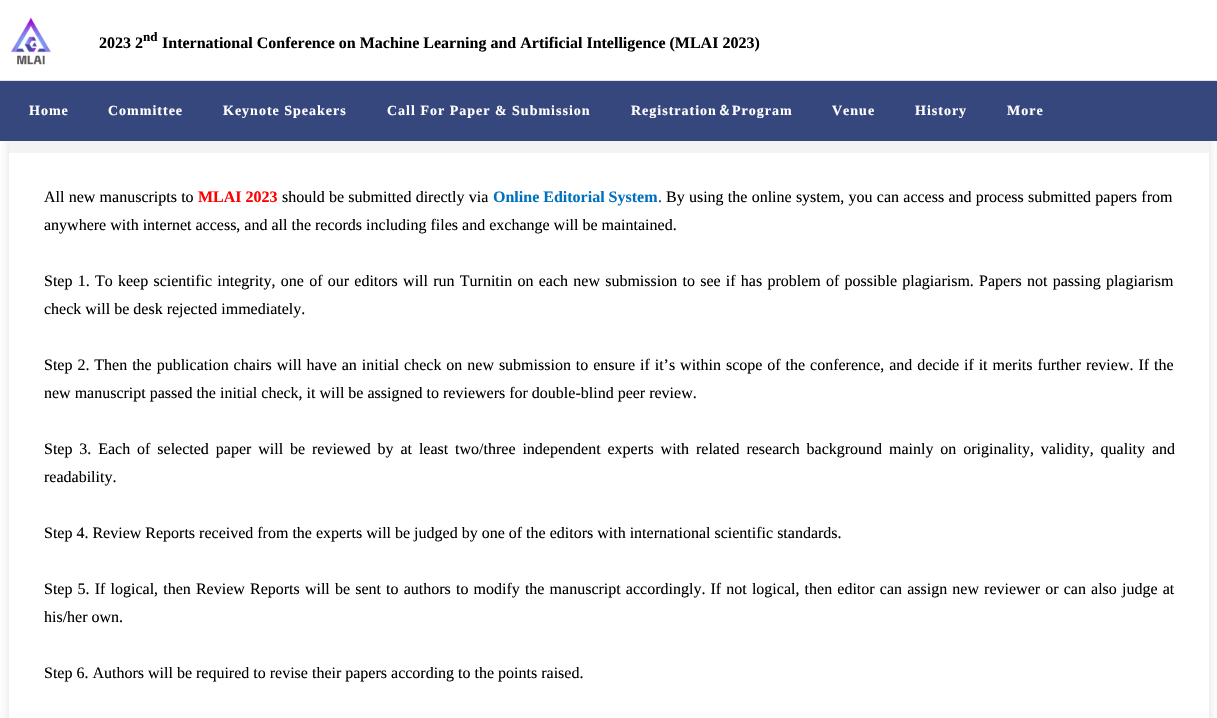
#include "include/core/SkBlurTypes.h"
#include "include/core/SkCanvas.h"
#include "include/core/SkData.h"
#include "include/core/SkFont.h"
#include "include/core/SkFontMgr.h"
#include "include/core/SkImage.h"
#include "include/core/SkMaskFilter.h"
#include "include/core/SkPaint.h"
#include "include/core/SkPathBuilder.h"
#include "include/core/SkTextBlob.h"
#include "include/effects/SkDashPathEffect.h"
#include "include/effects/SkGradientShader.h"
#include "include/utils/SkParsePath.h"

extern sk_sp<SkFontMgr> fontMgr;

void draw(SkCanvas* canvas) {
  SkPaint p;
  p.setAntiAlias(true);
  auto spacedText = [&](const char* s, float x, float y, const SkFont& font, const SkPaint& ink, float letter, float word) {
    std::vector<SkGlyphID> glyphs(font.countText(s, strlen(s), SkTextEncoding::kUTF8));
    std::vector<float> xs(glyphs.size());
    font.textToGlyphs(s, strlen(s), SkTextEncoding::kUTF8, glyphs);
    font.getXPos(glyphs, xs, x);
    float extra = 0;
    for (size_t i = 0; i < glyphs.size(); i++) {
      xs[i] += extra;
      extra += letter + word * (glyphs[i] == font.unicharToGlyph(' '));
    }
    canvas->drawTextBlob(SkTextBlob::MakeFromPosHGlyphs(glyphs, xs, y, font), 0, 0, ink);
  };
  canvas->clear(SK_ColorWHITE);
  canvas->drawImageRect(SkImages::DeferredFromEncodedData(SkData::MakeFromFileName("images/1.png")), SkRect::MakeLTRB(11, 17, 51, 65), SkSamplingOptions());
  canvas->save();
  canvas->clipPath(SkPathBuilder(SkPathFillType::kEvenOdd).moveTo(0, 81).lineTo(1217, 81).lineTo(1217, 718).lineTo(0, 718).close().moveTo(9, 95).lineTo(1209, 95).lineTo(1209, 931).lineTo(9, 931).close().detach(), true);
  p.setColor(SkColorSetARGB(31, 0, 0, 0));
  p.setMaskFilter(SkMaskFilter::MakeBlur(kNormal_SkBlurStyle, 5));
  canvas->drawRect(SkRect::MakeLTRB(9, 97, 1209, 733), p);
  p.setMaskFilter(nullptr);
  canvas->restore();
  p.setColor(SkColorSetRGB(53, 71, 125));
  canvas->drawRect(SkRect::MakeLTRB(0, 81, 1217, 141), p);
  p.setColor(SkColorSetRGB(228, 228, 228));
  canvas->drawRect(SkRect::MakeLTRB(0, 80, 1217, 81), p);
  p.setColor(SkColorSetRGB(243, 243, 243));
  canvas->drawRect(SkRect::MakeLTRB(9, 141, 1209, 153), p);
  SkFont font1(fontMgr->matchFamilyStyle("Liberation Serif", SkFontStyle::Bold()), 16);
  font1.setSubpixel(true);
  p.setColor(SK_ColorBLACK);
  canvas->drawString("2023 2", 99, 48, font1, p);
  SkFont font2(fontMgr->matchFamilyStyle("Liberation Serif", SkFontStyle::Bold()), 13);
  font2.setSubpixel(true);
  canvas->drawString("nd", 143, 41, font2, p);
  canvas->drawString("International Conference on Machine Learning and Artificial Intelligence (MLAI 2023)", 162, 48, font1, p);
  SkFont font3(fontMgr->matchFamilyStyle("Liberation Serif", SkFontStyle::Bold()), 14);
  font3.setSubpixel(true);
  p.setColor(SK_ColorWHITE);
  spacedText("Home", 29, 115, font3, p, 1, 0);
  spacedText("Committee", 108, 115, font3, p, 1, 0);
  spacedText("Keynote Speakers", 223, 115, font3, p, 1, 0);
  spacedText("Call For Paper & Submission", 387, 115, font3, p, 1, 0);
  spacedText("Registration", 631, 115, font3, p, 1, 0);
  SkFont font4(fontMgr->matchFamilyStyle("WenQuanYi Zen Hei", SkFontStyle::Bold()), 14);
  font4.setSubpixel(true);
  spacedText("＆", 717, 115, font4, p, 1, 0);
  spacedText("Program", 732, 115, font3, p, 1, 0);
  spacedText("Venue", 832, 115, font3, p, 1, 0);
  spacedText("History", 915, 115, font3, p, 1, 0);
  spacedText("More", 1007, 115, font3, p, 1, 0);
  SkFont font5(fontMgr->matchFamilyStyle("Liberation Serif", SkFontStyle::Normal()), 16);
  font5.setSubpixel(true);
  p.setColor(SK_ColorBLACK);
  spacedText("All new manuscripts to", 44, 202, font5, p, 0, 0.25f);
  p.setColor(SkColorSetRGB(255, 0, 0));
  canvas->drawString("MLAI 2023", 198, 202, font1, p);
  p.setColor(SK_ColorBLACK);
  spacedText("should be submitted directly via", 282, 202, font5, p, 0, 0.25f);
  p.setColor(SkColorSetRGB(0, 112, 192));
  canvas->drawString("Online Editorial System", 493, 202, font1, p);
  p.setColor(SkColorSetRGB(51, 51, 51));
  canvas->drawString(".", 658, 202, font5, p);
  p.setColor(SK_ColorBLACK);
  spacedText("By using the online system, you can access and process submitted papers from", 666, 202, font5, p, 0, 0.25f);
  canvas->drawString("anywhere with internet access, and all the records including files and exchange will be maintained.", 44, 230, font5, p);
  spacedText("Step 1. To keep scientific integrity, one of our editors will run Turnitin on each new submission to see if has problem of possible plagiarism. Papers not passing plagiarism", 44, 286, font5, p, 0, 1.25f);
  canvas->drawString("check will be desk rejected immediately.", 44, 314, font5, p);
  spacedText("Step 2. Then the publication chairs will have an initial check on new submission to ensure if it’s within scope of the conference, and decide if it merits further review. If the", 44, 370, font5, p, 0, 0.95f);
  canvas->drawString("new manuscript passed the initial check, it will be assigned to reviewers for double-blind peer review.", 44, 398, font5, p);
  spacedText("Step 3. Each of selected paper will be reviewed by at least two/three independent experts with related research background mainly on originality, validity, quality and", 44, 454, font5, p, 0, 2.9f);
  canvas->drawString("readability.", 44, 482, font5, p);
  canvas->drawString("Step 4. Review Reports received from the experts will be judged by one of the editors with international scientific standards.", 44, 538, font5, p);
  spacedText("Step 5. If logical, then Review Reports will be sent to authors to modify the manuscript accordingly. If not logical, then editor can assign new reviewer or can also judge at", 44, 594, font5, p, 0, 1.15f);
  canvas->drawString("his/her own.", 44, 622, font5, p);
  canvas->drawString("Step 6. Authors will be required to revise their papers according to the points raised.", 44, 678, font5, p);
}
